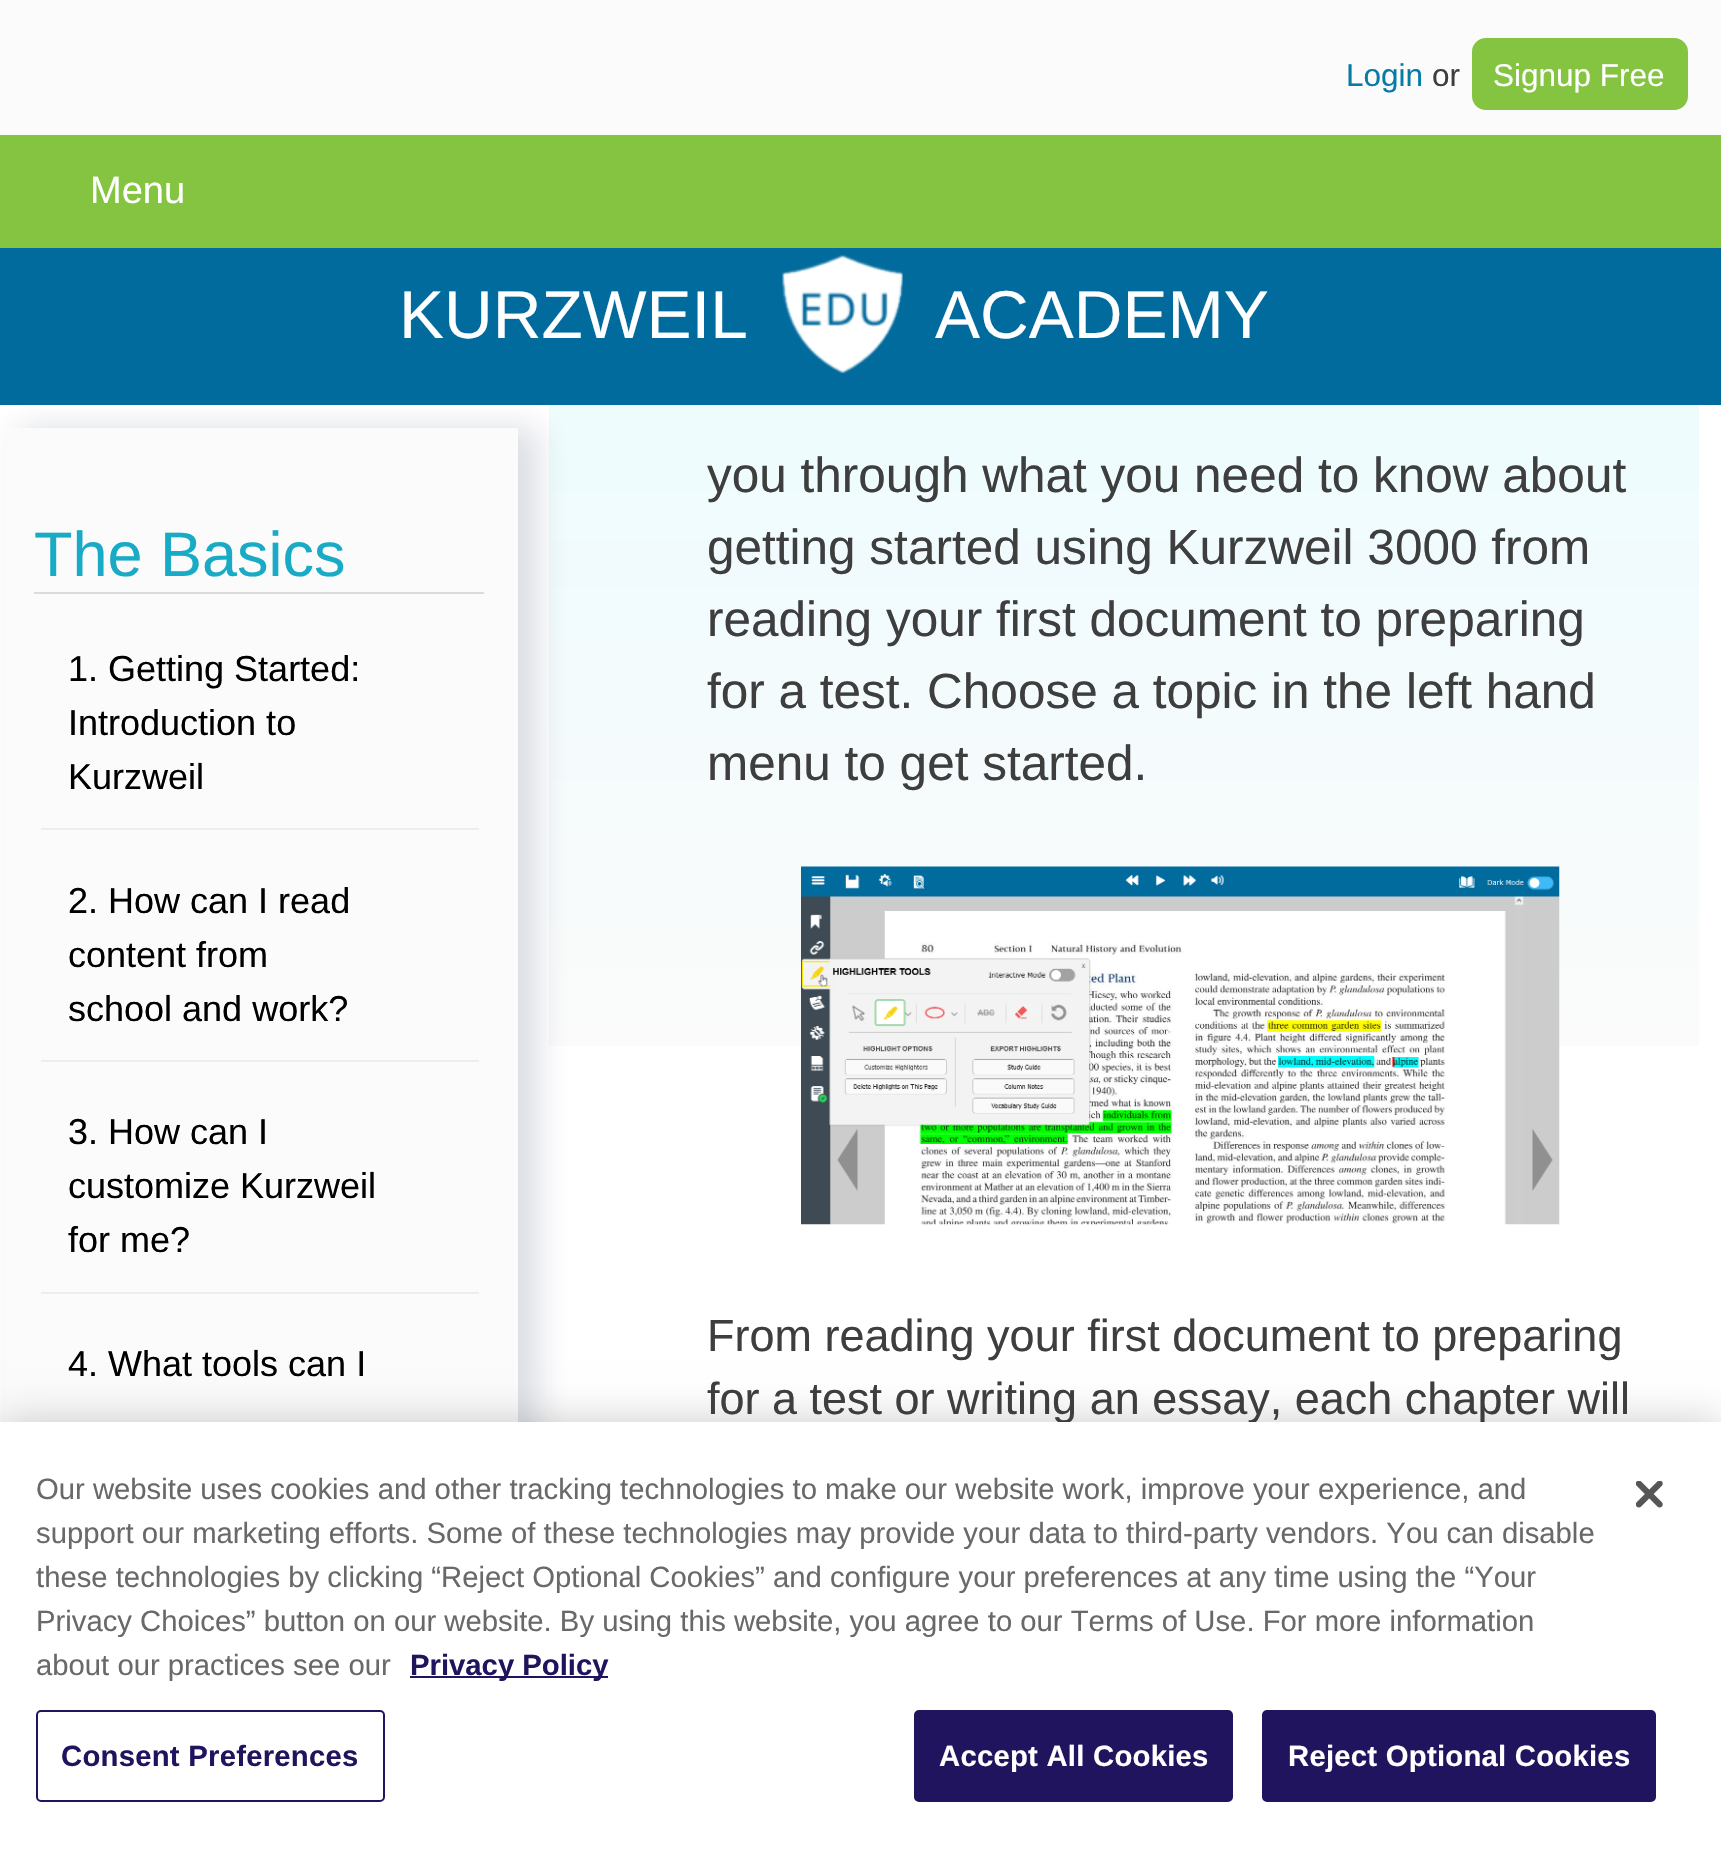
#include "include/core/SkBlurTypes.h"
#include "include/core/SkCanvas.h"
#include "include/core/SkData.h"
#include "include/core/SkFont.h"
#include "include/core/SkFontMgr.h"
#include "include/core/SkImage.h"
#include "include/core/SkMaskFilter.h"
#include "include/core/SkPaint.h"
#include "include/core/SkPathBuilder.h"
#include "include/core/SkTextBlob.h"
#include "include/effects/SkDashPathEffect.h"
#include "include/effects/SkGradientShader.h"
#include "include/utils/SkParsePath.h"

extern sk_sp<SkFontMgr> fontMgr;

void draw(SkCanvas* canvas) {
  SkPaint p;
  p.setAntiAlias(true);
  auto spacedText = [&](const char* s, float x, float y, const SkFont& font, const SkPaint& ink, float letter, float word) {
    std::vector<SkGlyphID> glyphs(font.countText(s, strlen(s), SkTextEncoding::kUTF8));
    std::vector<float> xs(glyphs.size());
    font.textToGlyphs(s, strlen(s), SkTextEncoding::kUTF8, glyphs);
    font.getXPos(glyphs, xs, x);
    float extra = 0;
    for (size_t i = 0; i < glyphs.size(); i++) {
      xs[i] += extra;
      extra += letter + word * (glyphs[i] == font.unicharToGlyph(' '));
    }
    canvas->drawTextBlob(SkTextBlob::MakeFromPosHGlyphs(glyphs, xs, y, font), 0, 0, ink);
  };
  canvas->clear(SK_ColorWHITE);
  p.setColor(SkColorSetRGB(251, 251, 251));
  canvas->drawRect(SkRect::MakeLTRB(0, 0, 1721, 135), p);
  p.setColor(SkColorSetRGB(132, 196, 65));
  canvas->drawRoundRect(SkRect::MakeLTRB(1474.5f, 40.5f, 1685.5f, 107.5f), 11.5f, 11.5f, p);
  p.setStyle(SkPaint::kStroke_Style);
  p.setStrokeWidth(5);
  canvas->drawRoundRect(SkRect::MakeLTRB(1474.5f, 40.5f, 1685.5f, 107.5f), 11.5f, 11.5f, p);
  p.setStyle(SkPaint::kFill_Style);
  canvas->drawRect(SkRect::MakeLTRB(0, 135, 1721, 248), p);
  {
    const SkColor colors[] = {SkColorSetRGB(230, 252, 255), SkColorSetRGB(251, 251, 251)};
    const float stops[] = {0, 1};
    const SkPoint ends[] = {{1124, 34}, {1124, 1046}};
    p.setShader(SkGradientShader::MakeLinear(ends, colors, stops, 2, SkTileMode::kClamp));
    p.setAlpha(255);
  }
  canvas->drawRect(SkRect::MakeLTRB(549, 405, 1699, 1046), p);
  p.setShader(nullptr);
  p.setColor(SkColorSetARGB(38, 9, 30, 66));
  p.setMaskFilter(SkMaskFilter::MakeBlur(kNormal_SkBlurStyle, 15.5f));
  canvas->drawRect(SkRect::MakeLTRB(20, 428, 538, 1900), p);
  p.setMaskFilter(nullptr);
  p.setColor(SkColorSetRGB(2, 107, 158));
  canvas->drawRect(SkRect::MakeLTRB(0, 248, 1721, 405), p);
  canvas->drawImageRect(SkImages::DeferredFromEncodedData(SkData::MakeFromFileName("images/1.png")), SkRect::MakeLTRB(782, 255, 903, 374), SkSamplingOptions());
  p.setColor(SkColorSetRGB(251, 251, 251));
  canvas->drawRect(SkRect::MakeLTRB(6, 428, 518, 1422), p);
  p.setColor(SkColorSetRGB(219, 219, 219));
  canvas->drawRect(SkRect::MakeLTRB(34, 592, 484, 594), p);
  p.setColor(SkColorSetRGB(238, 238, 238));
  canvas->drawRect(SkRect::MakeLTRB(41, 828, 479, 830), p);
  canvas->drawRect(SkRect::MakeLTRB(41, 1060, 479, 1062), p);
  canvas->drawRect(SkRect::MakeLTRB(41, 1292, 479, 1294), p);
  canvas->drawImageRect(SkImages::DeferredFromEncodedData(SkData::MakeFromFileName("images/2.png")), SkRect::MakeLTRB(801, 866, 1560, 1225), SkSamplingOptions());
  p.setColor(SkColorSetARGB(51, 0, 0, 0));
  p.setMaskFilter(SkMaskFilter::MakeBlur(kNormal_SkBlurStyle, 20));
  canvas->drawRect(SkRect::MakeLTRB(0, 1422, 1721, 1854), p);
  p.setMaskFilter(nullptr);
  SkFont font1(fontMgr->matchFamilyStyle("Liberation Sans", SkFontStyle::Normal()), 31.5f);
  font1.setSubpixel(true);
  p.setColor(SkColorSetRGB(7, 122, 166));
  canvas->drawString("Login", 1346, 86, font1, p);
  p.setColor(SkColorSetRGB(62, 62, 62));
  canvas->drawString("or", 1432, 86, font1, p);
  p.setColor(SK_ColorWHITE);
  canvas->drawString("Signup Free", 1493, 86, font1, p);
  SkFont font2(fontMgr->matchFamilyStyle("Liberation Sans", SkFontStyle::Normal()), 38);
  font2.setSubpixel(true);
  canvas->drawString("Menu", 90, 203, font2, p);
  SkFont font3(fontMgr->matchFamilyStyle("Liberation Sans", SkFontStyle::Normal()), 67.5f);
  font3.setSubpixel(true);
  canvas->drawString("KURZWEIL", 399, 338, font3, p);
  canvas->drawString("ACADEMY", 935, 338, font3, p);
  SkFont font4(fontMgr->matchFamilyStyle("Liberation Sans", SkFontStyle::Normal()), 63);
  font4.setSubpixel(true);
  p.setColor(SkColorSetRGB(25, 171, 197));
  canvas->drawString("The Basics", 34, 576, font4, p);
  SkFont font5(fontMgr->matchFamilyStyle("Liberation Sans", SkFontStyle::Normal()), 36);
  font5.setSubpixel(true);
  p.setColor(SK_ColorBLACK);
  canvas->drawString("1. Getting Started:", 68, 681, font5, p);
  canvas->drawString("Introduction to", 68, 735, font5, p);
  canvas->drawString("Kurzweil", 68, 789, font5, p);
  canvas->drawString("2. How can I read", 68, 913, font5, p);
  canvas->drawString("content from", 68, 967, font5, p);
  canvas->drawString("school and work?", 68, 1021, font5, p);
  canvas->drawString("3. How can I", 68, 1144, font5, p);
  canvas->drawString("customize Kurzweil", 68, 1198, font5, p);
  canvas->drawString("for me?", 68, 1252, font5, p);
  canvas->drawString("4. What tools can I", 68, 1376, font5, p);
  SkFont font6(fontMgr->matchFamilyStyle("Liberation Sans", SkFontStyle::Normal()), 49.5f);
  font6.setSubpixel(true);
  p.setColor(SkColorSetRGB(62, 62, 62));
  canvas->drawString("you through what you need to know about", 707, 492, font6, p);
  canvas->drawString("getting started using Kurzweil 3000 from", 707, 564, font6, p);
  canvas->drawString("reading your first document to preparing", 707, 636, font6, p);
  canvas->drawString("for a test. Choose a topic in the left hand", 707, 708, font6, p);
  canvas->drawString("menu to get started.", 707, 780, font6, p);
  SkFont font7(fontMgr->matchFamilyStyle("Liberation Sans", SkFontStyle::Normal()), 45);
  font7.setSubpixel(true);
  canvas->drawString("From reading your first document to preparing", 707, 1351, font7, p);
  canvas->drawString("for a test or writing an essay, each chapter will", 707, 1414, font7, p);
  p.setColor(SK_ColorWHITE);
  canvas->drawRect(SkRect::MakeLTRB(0, 1422, 1721, 1853), p);
  SkFont font8(fontMgr->matchFamilyStyle("Liberation Sans", SkFontStyle::Normal()), 29.27f);
  font8.setSubpixel(true);
  p.setColor(SkColorSetRGB(105, 105, 105));
  canvas->drawString("Our website uses cookies and other tracking technologies to make our website work, improve your experience, and", 36, 1499, font8, p);
  canvas->drawString("support our marketing efforts. Some of these technologies may provide your data to third-party vendors. You can disable", 36, 1543, font8, p);
  canvas->drawString("these technologies by clicking “Reject Optional Cookies” and configure your preferences at any time using the “Your", 36, 1587, font8, p);
  canvas->drawString("Privacy Choices” button on our website. By using this website, you agree to our Terms of Use. For more information", 36, 1631, font8, p);
  canvas->drawString("about our practices see our", 36, 1675, font8, p);
  p.setColor(SkColorSetRGB(33, 20, 95));
  canvas->drawRect(SkRect::MakeLTRB(410, 1676, 608, 1678), p);
  SkFont font9(fontMgr->matchFamilyStyle("Liberation Sans", SkFontStyle::Bold()), 29.27f);
  font9.setSubpixel(true);
  canvas->drawString("Privacy Policy", 410, 1675, font9, p);
  p.setStyle(SkPaint::kStroke_Style);
  p.setStrokeWidth(2);
  canvas->drawRoundRect(SkRect::MakeLTRB(37, 1711, 384, 1801), 4, 4, p);
  p.setStyle(SkPaint::kFill_Style);
  spacedText("Consent Preferences", 61, 1766, font9, p, 0.25f, 0);
  canvas->drawRoundRect(SkRect::MakeLTRB(915, 1711, 1232, 1801), 4, 4, p);
  p.setStyle(SkPaint::kStroke_Style);
  canvas->drawRoundRect(SkRect::MakeLTRB(915, 1711, 1232, 1801), 4, 4, p);
  p.setStyle(SkPaint::kFill_Style);
  p.setColor(SK_ColorWHITE);
  spacedText("Accept All Cookies", 939, 1766, font9, p, 0.25f, 0);
  p.setColor(SkColorSetRGB(33, 20, 95));
  canvas->drawRoundRect(SkRect::MakeLTRB(1263, 1711, 1655, 1801), 4, 4, p);
  p.setStyle(SkPaint::kStroke_Style);
  canvas->drawRoundRect(SkRect::MakeLTRB(1263, 1711, 1655, 1801), 4, 4, p);
  p.setStyle(SkPaint::kFill_Style);
  p.setColor(SK_ColorWHITE);
  spacedText("Reject Optional Cookies", 1288, 1766, font9, p, 0.25f, 0);
  canvas->drawImageRect(SkImages::DeferredFromEncodedData(SkData::MakeFromFileName("images/3.png")), SkRect::MakeLTRB(1636, 1481, 1663, 1508), SkSamplingOptions());
}
